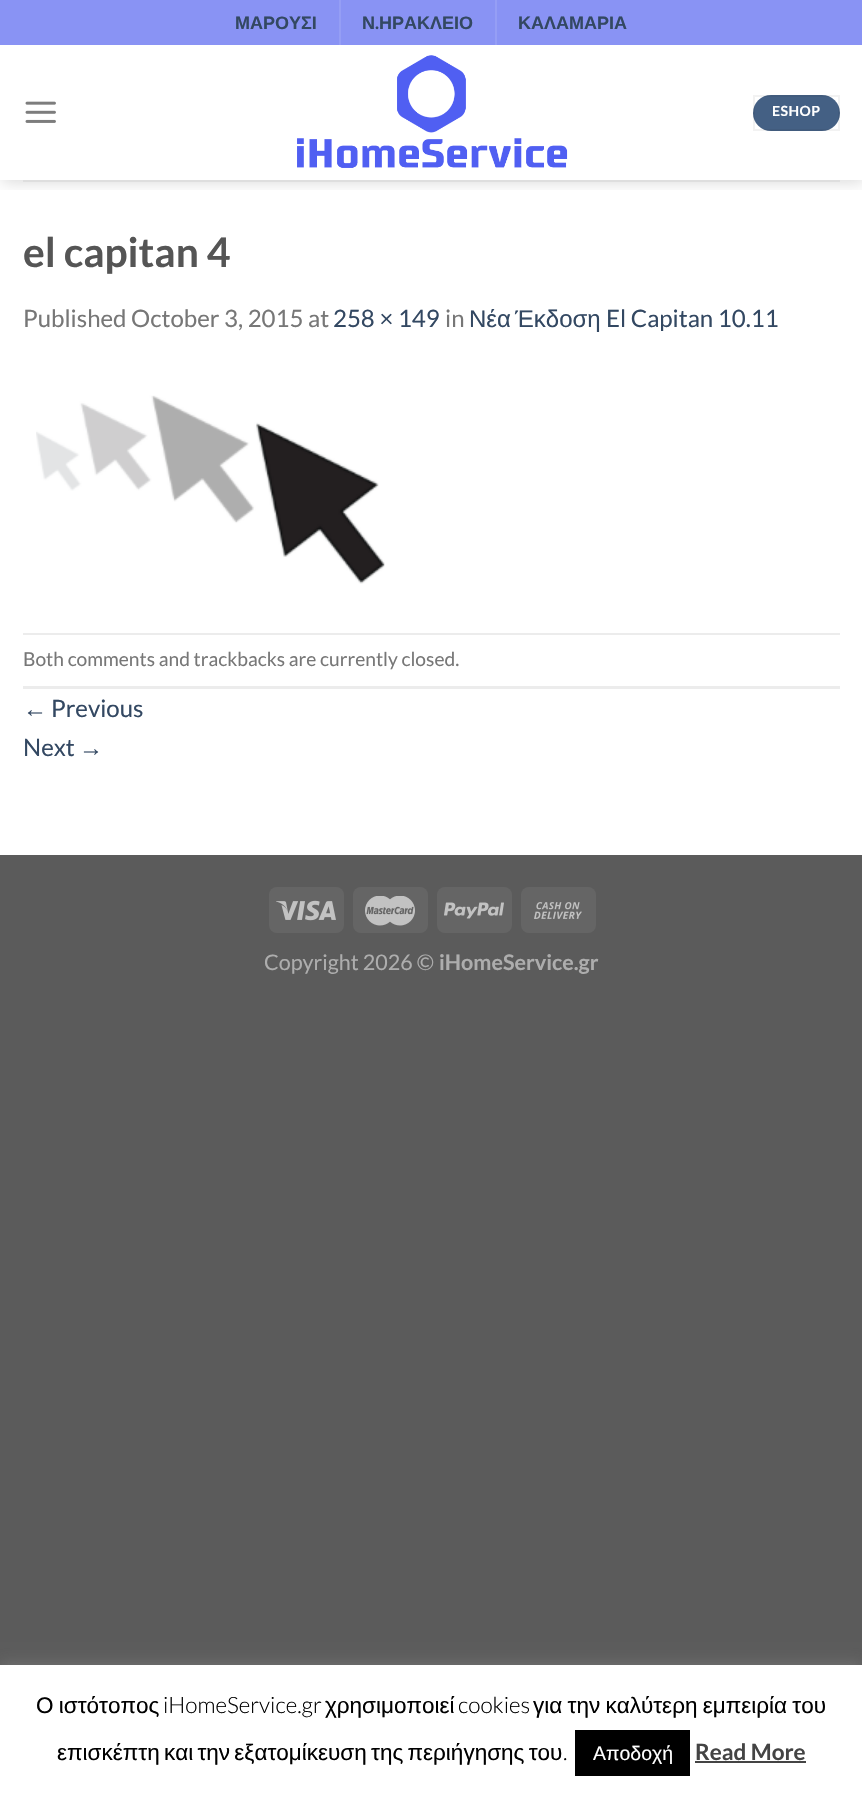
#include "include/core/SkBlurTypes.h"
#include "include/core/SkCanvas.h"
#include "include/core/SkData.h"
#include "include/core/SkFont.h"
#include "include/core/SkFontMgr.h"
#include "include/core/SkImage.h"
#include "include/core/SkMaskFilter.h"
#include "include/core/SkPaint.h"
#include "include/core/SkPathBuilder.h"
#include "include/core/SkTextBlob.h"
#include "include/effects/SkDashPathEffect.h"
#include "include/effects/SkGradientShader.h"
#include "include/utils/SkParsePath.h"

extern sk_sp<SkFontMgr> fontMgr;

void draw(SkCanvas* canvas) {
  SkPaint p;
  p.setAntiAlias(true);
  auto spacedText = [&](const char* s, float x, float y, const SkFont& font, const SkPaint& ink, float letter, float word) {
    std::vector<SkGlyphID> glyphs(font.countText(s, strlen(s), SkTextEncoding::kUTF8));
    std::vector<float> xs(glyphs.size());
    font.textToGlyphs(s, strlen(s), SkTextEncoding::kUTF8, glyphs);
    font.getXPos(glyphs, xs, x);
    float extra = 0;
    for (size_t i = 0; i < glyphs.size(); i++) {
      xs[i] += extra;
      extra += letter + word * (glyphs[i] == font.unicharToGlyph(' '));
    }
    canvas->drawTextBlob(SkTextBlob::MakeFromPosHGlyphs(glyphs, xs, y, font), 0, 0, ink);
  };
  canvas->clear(SkColorSetRGB(91, 91, 91));
  p.setColor(SK_ColorWHITE);
  canvas->drawRect(SkRect::MakeLTRB(0, 45, 862, 855), p);
  canvas->save();
  canvas->clipRect(SkRect::MakeLTRB(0, 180, 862, 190));
  p.setColor(SkColorSetARGB(38, 0, 0, 0));
  p.setMaskFilter(SkMaskFilter::MakeBlur(kNormal_SkBlurStyle, 7.5f));
  canvas->drawRect(SkRect::MakeLTRB(2, 2, 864, 182), p);
  p.setMaskFilter(nullptr);
  canvas->restore();
  p.setColor(SkColorSetRGB(137, 147, 244));
  canvas->drawRect(SkRect::MakeLTRB(0, 0, 862, 45), p);
  p.setColor(SkColorSetRGB(149, 158, 245));
  canvas->drawRect(SkRect::MakeLTRB(339, 0, 341, 45), p);
  canvas->drawRect(SkRect::MakeLTRB(495, 0, 497, 45), p);
  canvas->drawImageRect(SkImages::DeferredFromEncodedData(SkData::MakeFromFileName("images/1.png")), SkRect::MakeLTRB(25, 101, 56, 123), SkSamplingOptions());
  canvas->drawImageRect(SkImages::DeferredFromEncodedData(SkData::MakeFromFileName("images/2.png")), SkRect::MakeLTRB(297, 55, 568, 168), SkSamplingOptions());
  p.setColor(SkColorSetRGB(68, 96, 132));
  canvas->drawRoundRect(SkRect::MakeLTRB(753, 95, 840, 131), 18, 18, p);
  p.setStyle(SkPaint::kStroke_Style);
  p.setStrokeWidth(2);
  p.setColor(SkColorSetARGB(13, 0, 0, 0));
  canvas->drawRect(SkRect::MakeLTRB(754, 96, 839, 130), p);
  p.setStyle(SkPaint::kFill_Style);
  p.setColor(SkColorSetRGB(222, 222, 222));
  canvas->drawRect(SkRect::MakeLTRB(23, 180, 840, 182), p);
  canvas->drawImageRect(SkImages::DeferredFromEncodedData(SkData::MakeFromFileName("images/3.png")), SkRect::MakeLTRB(36, 395, 385, 584), SkSamplingOptions());
  p.setColor(SkColorSetRGB(236, 236, 236));
  canvas->drawRect(SkRect::MakeLTRB(23, 633, 840, 635), p);
  canvas->drawRect(SkRect::MakeLTRB(23, 686, 840, 689), p);
  p.setColor(SkColorSetRGB(101, 101, 101));
  canvas->drawRoundRect(SkRect::MakeLTRB(269, 887, 344, 933), 8, 8, p);
  canvas->drawImageRect(SkImages::DeferredFromEncodedData(SkData::MakeFromFileName("images/4.png")), SkRect::MakeLTRB(276, 900, 336, 921), SkSamplingOptions());
  canvas->drawRoundRect(SkRect::MakeLTRB(353, 887, 428, 933), 8, 8, p);
  canvas->drawImageRect(SkImages::DeferredFromEncodedData(SkData::MakeFromFileName("images/5.png")), SkRect::MakeLTRB(365, 896, 415, 926), SkSamplingOptions());
  canvas->drawRoundRect(SkRect::MakeLTRB(437, 887, 512, 933), 8, 8, p);
  canvas->drawImageRect(SkImages::DeferredFromEncodedData(SkData::MakeFromFileName("images/6.png")), SkRect::MakeLTRB(444, 902, 504, 919), SkSamplingOptions());
  canvas->drawRoundRect(SkRect::MakeLTRB(521, 887, 596, 933), 8, 8, p);
  canvas->drawImageRect(SkImages::DeferredFromEncodedData(SkData::MakeFromFileName("images/7.png")), SkRect::MakeLTRB(534, 902, 582, 919), SkSamplingOptions());
  p.setColor(SkColorSetARGB(77, 172, 171, 171));
  p.setMaskFilter(SkMaskFilter::MakeBlur(kNormal_SkBlurStyle, 7.5f));
  canvas->drawRect(SkRect::MakeLTRB(0, 1664, 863, 1793), p);
  p.setMaskFilter(nullptr);
  p.setColor(SK_ColorWHITE);
  canvas->drawRect(SkRect::MakeLTRB(0, 1665, 862, 1793), p);
  p.setColor(SK_ColorBLACK);
  canvas->drawRect(SkRect::MakeLTRB(575, 1730, 690, 1776), p);
  p.setColor(SkColorSetRGB(68, 68, 68));
  canvas->drawRect(SkRect::MakeLTRB(695, 1761, 806, 1763), p);
  SkFont font1(fontMgr->matchFamilyStyle("Liberation Sans", SkFontStyle::Bold()), 18);
  font1.setSubpixel(true);
  p.setColor(SkColorSetRGB(51, 72, 98));
  canvas->drawString("ΜΑΡΟΥΣΙ", 235, 29, font1, p);
  canvas->drawString("Ν", 362, 29, font1, p);
  SkFont font2(fontMgr->matchFamilyStyle("Lato", SkFontStyle::Bold()), 18);
  font2.setSubpixel(true);
  canvas->drawString(".", 375, 29, font2, p);
  canvas->drawString("ΗΡΑΚΛΕΙΟ", 379, 29, font1, p);
  canvas->drawString("ΚΑΛΑΜΑΡΙΑ", 518, 29, font1, p);
  SkFont font3(fontMgr->matchFamilyStyle("Lato", SkFontStyle::Bold()), 14);
  font3.setSubpixel(true);
  p.setColor(SK_ColorWHITE);
  spacedText("ESHOP", 772, 116, font3, p, 0.5f, 0);
  SkFont font4(fontMgr->matchFamilyStyle("Lato", SkFontStyle::Bold()), 40.75f);
  font4.setSubpixel(true);
  p.setColor(SkColorSetRGB(85, 85, 85));
  canvas->drawString("el capitan 4", 23, 267, font4, p);
  SkFont font5(fontMgr->matchFamilyStyle("Lato", SkFontStyle::Normal()), 24);
  font5.setSubpixel(true);
  p.setColor(SkColorSetRGB(119, 119, 119));
  canvas->drawString("Published October 3, 2015 at", 23, 327, font5, p);
  p.setColor(SkColorSetRGB(51, 72, 98));
  canvas->drawString("258 × 149", 333, 327, font5, p);
  p.setColor(SkColorSetRGB(119, 119, 119));
  canvas->drawString("in", 445, 327, font5, p);
  SkFont font6(fontMgr->matchFamilyStyle("Liberation Sans", SkFontStyle::Normal()), 24);
  font6.setSubpixel(true);
  p.setColor(SkColorSetRGB(51, 72, 98));
  canvas->drawString("Νέα", 469, 327, font6, p);
  canvas->drawString("Έκδοση", 515, 327, font6, p);
  canvas->drawString("El Capitan 10.11", 606, 327, font5, p);
  SkFont font7(fontMgr->matchFamilyStyle("Lato", SkFontStyle::Normal()), 19.2f);
  font7.setSubpixel(true);
  p.setColor(SkColorSetRGB(119, 119, 119));
  canvas->drawString("Both comments and trackbacks are currently closed.", 23, 666, font7, p);
  p.setColor(SkColorSetRGB(51, 72, 98));
  canvas->drawString("←", 23, 717, font6, p);
  canvas->drawString("Previous", 51, 717, font5, p);
  canvas->drawString("Next", 23, 756, font5, p);
  canvas->drawString("→", 79, 756, font6, p);
  SkFont font8(fontMgr->matchFamilyStyle("Lato", SkFontStyle::Normal()), 21.5f);
  font8.setSubpixel(true);
  p.setColor(SkColorSetRGB(173, 173, 173));
  canvas->drawString("Copyright 2026 ©", 264, 970, font8, p);
  SkFont font9(fontMgr->matchFamilyStyle("Lato", SkFontStyle::Bold()), 21.5f);
  font9.setSubpixel(true);
  canvas->drawString("iHomeService.gr", 439, 970, font9, p);
  SkFont font10(fontMgr->matchFamilyStyle("Liberation Sans", SkFontStyle::Normal()), 22.5f);
  font10.setSubpixel(true);
  p.setColor(SK_ColorBLACK);
  spacedText("Ο ιστότοπος", 36, 1713, font10, p, 0, -1);
  SkFont font11(fontMgr->matchFamilyStyle("Lato", SkFontStyle(300, SkFontStyle::kNormal_Width, SkFontStyle::kUpright_Slant)), 22.5f);
  font11.setSubpixel(true);
  canvas->drawString("iHomeService.gr", 163, 1713, font11, p);
  canvas->drawString("χρησιμοποιεί", 325, 1713, font10, p);
  canvas->drawString("cookies", 458, 1713, font11, p);
  spacedText("για την καλύτερη εμπειρία του", 533, 1713, font10, p, 0, -1);
  spacedText("επισκέπτη και την εξατομίκευση της περιήγησης του", 57, 1760, font10, p, 0, -2);
  canvas->drawString(".", 563, 1760, font11, p);
  SkFont font12(fontMgr->matchFamilyStyle("Liberation Sans", SkFontStyle::Normal()), 19.5f);
  font12.setSubpixel(true);
  p.setColor(SK_ColorWHITE);
  canvas->drawString("Αποδοχή", 593, 1760, font12, p);
  SkFont font13(fontMgr->matchFamilyStyle("Lato", SkFontStyle::Bold()), 22.5f);
  font13.setSubpixel(true);
  p.setColor(SkColorSetRGB(68, 68, 68));
  canvas->drawString("Read More", 695, 1760, font13, p);
}
